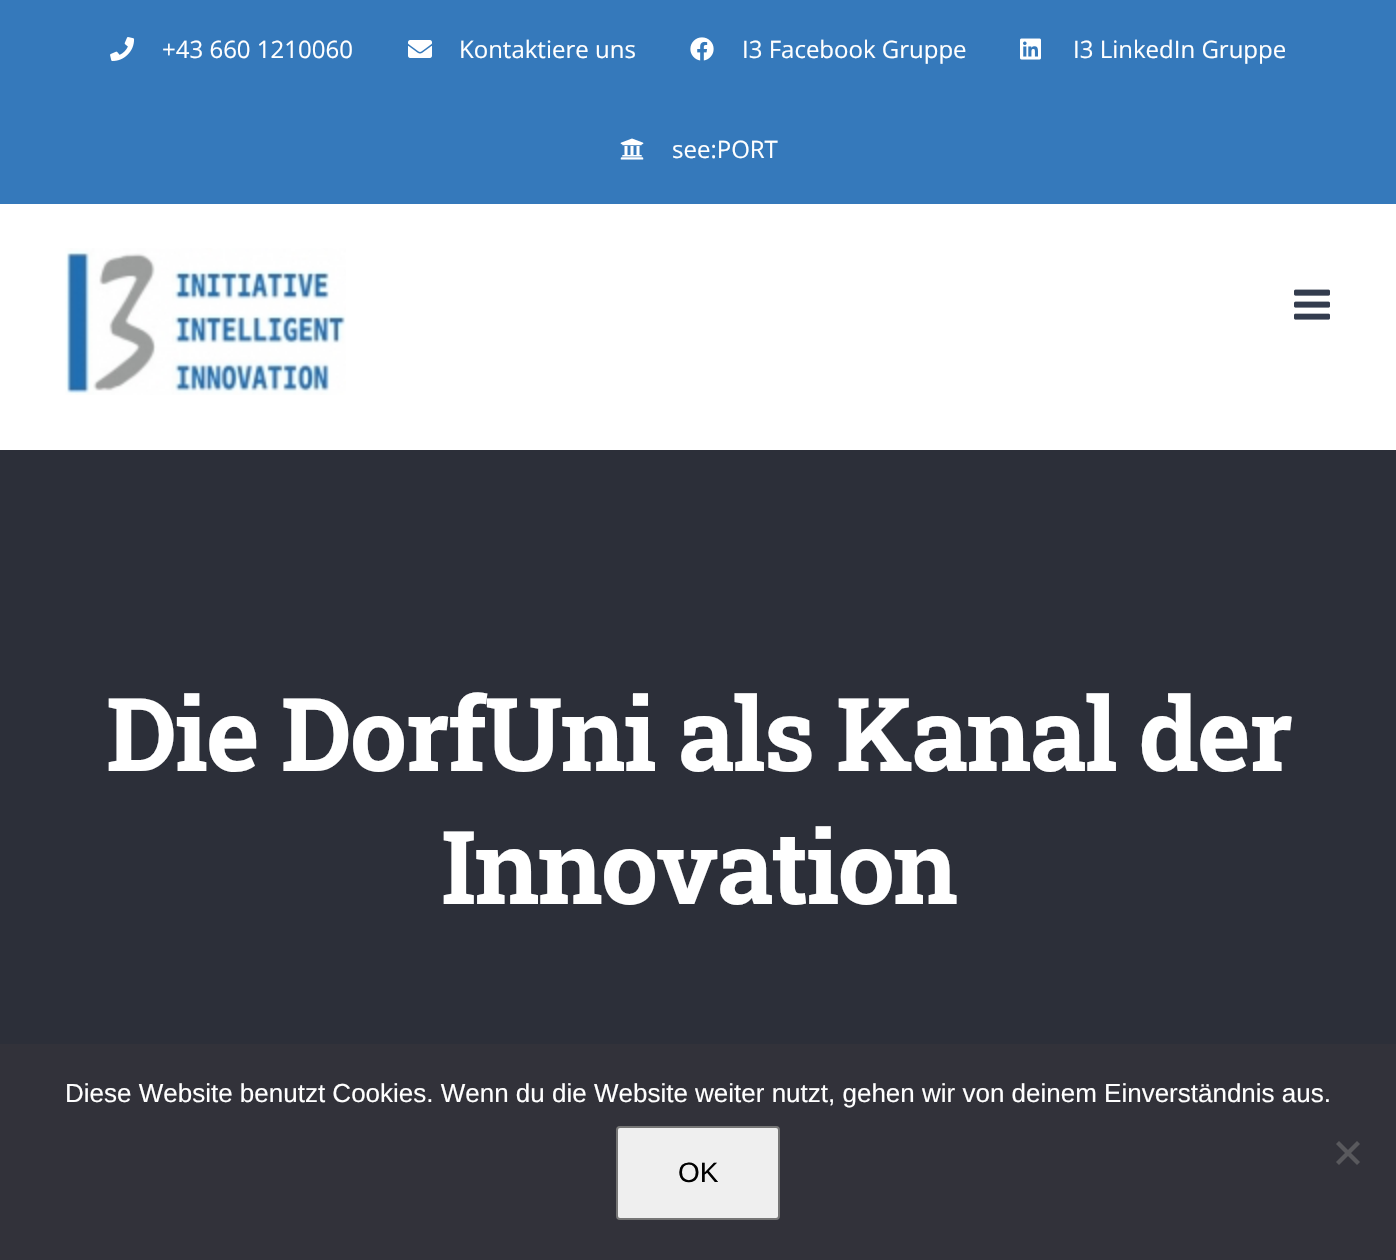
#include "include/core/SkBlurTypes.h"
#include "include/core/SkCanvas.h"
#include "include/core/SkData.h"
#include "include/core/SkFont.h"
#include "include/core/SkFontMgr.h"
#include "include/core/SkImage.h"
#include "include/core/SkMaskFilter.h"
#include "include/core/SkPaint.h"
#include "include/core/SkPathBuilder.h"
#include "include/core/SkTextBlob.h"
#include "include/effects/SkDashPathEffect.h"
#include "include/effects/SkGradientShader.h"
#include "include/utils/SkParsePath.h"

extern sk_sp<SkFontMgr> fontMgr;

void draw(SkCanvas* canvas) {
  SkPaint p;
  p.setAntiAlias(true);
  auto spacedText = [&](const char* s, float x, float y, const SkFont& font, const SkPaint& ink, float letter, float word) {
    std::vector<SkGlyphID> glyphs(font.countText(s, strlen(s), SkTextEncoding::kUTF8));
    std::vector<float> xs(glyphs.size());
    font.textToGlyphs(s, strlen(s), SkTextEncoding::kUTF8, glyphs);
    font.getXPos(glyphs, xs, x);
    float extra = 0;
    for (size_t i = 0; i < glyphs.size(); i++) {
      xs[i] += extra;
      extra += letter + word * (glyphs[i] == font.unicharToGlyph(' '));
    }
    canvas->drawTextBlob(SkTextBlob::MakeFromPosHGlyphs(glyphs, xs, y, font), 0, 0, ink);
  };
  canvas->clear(SK_ColorWHITE);
  p.setColor(SkColorSetRGB(53, 121, 187));
  canvas->drawRect(SkRect::MakeLTRB(0, 0, 1396, 204), p);
  canvas->drawImageRect(SkImages::DeferredFromEncodedData(SkData::MakeFromFileName("images/1.png")), SkRect::MakeLTRB(110, 37, 135, 61), SkSamplingOptions());
  canvas->drawImageRect(SkImages::DeferredFromEncodedData(SkData::MakeFromFileName("images/2.png")), SkRect::MakeLTRB(408, 40, 432, 58), SkSamplingOptions());
  canvas->drawImageRect(SkImages::DeferredFromEncodedData(SkData::MakeFromFileName("images/3.png")), SkRect::MakeLTRB(690, 37, 714, 61), SkSamplingOptions());
  canvas->drawImageRect(SkImages::DeferredFromEncodedData(SkData::MakeFromFileName("images/4.png")), SkRect::MakeLTRB(1020, 38, 1041, 60), SkSamplingOptions());
  canvas->drawImageRect(SkImages::DeferredFromEncodedData(SkData::MakeFromFileName("images/5.png")), SkRect::MakeLTRB(620, 138, 644, 160), SkSamplingOptions());
  canvas->drawImageRect(SkImages::DeferredFromEncodedData(SkData::MakeFromFileName("images/6.png")), SkRect::MakeLTRB(65, 248, 346, 395), SkSamplingOptions());
  canvas->drawImageRect(SkImages::DeferredFromEncodedData(SkData::MakeFromFileName("images/7.png")), SkRect::MakeLTRB(1294, 289, 1330, 320), SkSamplingOptions());
  p.setColor(SkColorSetRGB(44, 47, 57));
  canvas->drawRect(SkRect::MakeLTRB(0, 450, 1396, 1044), p);
  p.setColor(SkColorSetRGB(50, 50, 58));
  canvas->drawRect(SkRect::MakeLTRB(0, 1044, 1396, 1260), p);
  p.setColor(SkColorSetRGB(89, 89, 93));
  canvas->drawPath(SkPathBuilder().moveTo(1357, 1141).lineTo(1360, 1144).lineTo(1339, 1165).lineTo(1336, 1162).close().detach(), p);
  canvas->drawPath(SkPathBuilder().moveTo(1336, 1144).lineTo(1339, 1141).lineTo(1360, 1162).lineTo(1357, 1165).close().detach(), p);
  p.setColor(SkColorSetRGB(239, 239, 239));
  canvas->drawRoundRect(SkRect::MakeLTRB(617, 1127, 779, 1219), 3, 3, p);
  p.setStyle(SkPaint::kStroke_Style);
  p.setStrokeWidth(2);
  p.setColor(SkColorSetRGB(118, 118, 118));
  canvas->drawRoundRect(SkRect::MakeLTRB(617, 1127, 779, 1219), 3, 3, p);
  SkFont font1(fontMgr->matchFamilyStyle("Open Sans", SkFontStyle::Normal()), 24);
  font1.setSubpixel(true);
  p.setStyle(SkPaint::kFill_Style);
  p.setColor(SK_ColorWHITE);
  canvas->drawString("+43 660 1210060", 162, 58, font1, p);
  canvas->drawString("Kontaktiere uns", 459, 58, font1, p);
  canvas->drawString("I3 Facebook Gruppe", 742, 58, font1, p);
  canvas->drawString("I3 LinkedIn Gruppe", 1073, 58, font1, p);
  canvas->drawString("see:PORT", 672, 158, font1, p);
  SkFont font2(fontMgr->matchFamilyStyle("Roboto Slab", SkFontStyle::Bold()), 102);
  font2.setSubpixel(true);
  spacedText("Die DorfUni als Kanal der", 106, 771, font2, p, -2, 0);
  spacedText("Innovation", 441, 904, font2, p, -2, 0);
  SkFont font3(fontMgr->matchFamilyStyle("Liberation Sans", SkFontStyle::Normal()), 26);
  font3.setSubpixel(true);
  canvas->drawString("Diese Website benutzt Cookies. Wenn du die Website weiter nutzt, gehen wir von deinem Einverständnis aus.", 65, 1102, font3, p);
  SkFont font4(fontMgr->matchFamilyStyle("Liberation Sans", SkFontStyle::Normal()), 28);
  font4.setSubpixel(true);
  p.setColor(SK_ColorBLACK);
  canvas->drawString("OK", 678, 1182, font4, p);
}
